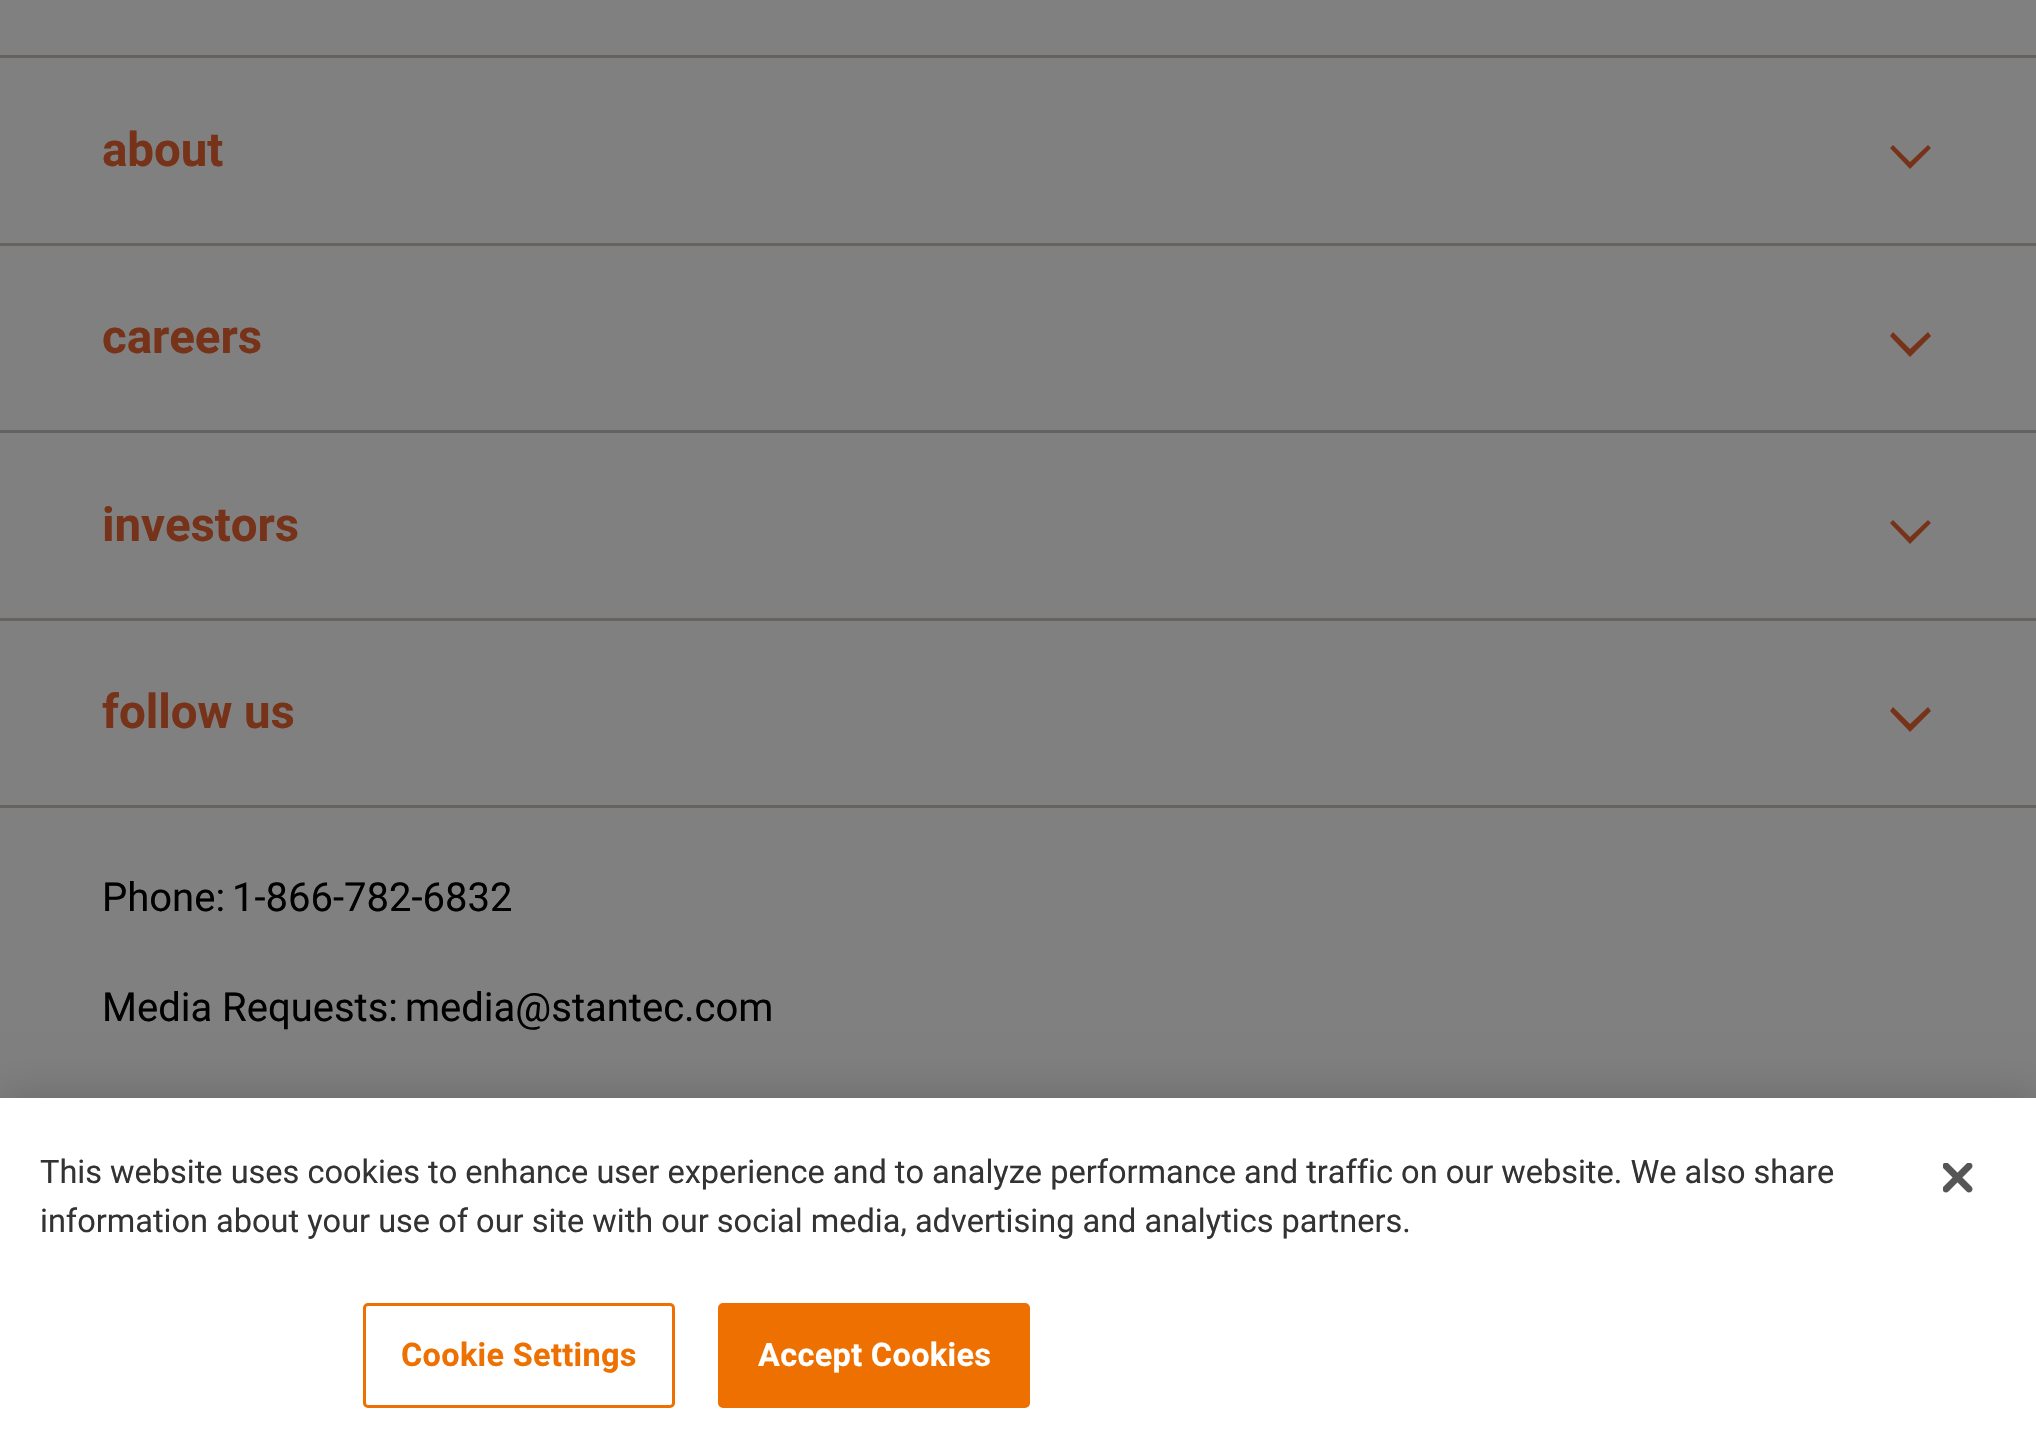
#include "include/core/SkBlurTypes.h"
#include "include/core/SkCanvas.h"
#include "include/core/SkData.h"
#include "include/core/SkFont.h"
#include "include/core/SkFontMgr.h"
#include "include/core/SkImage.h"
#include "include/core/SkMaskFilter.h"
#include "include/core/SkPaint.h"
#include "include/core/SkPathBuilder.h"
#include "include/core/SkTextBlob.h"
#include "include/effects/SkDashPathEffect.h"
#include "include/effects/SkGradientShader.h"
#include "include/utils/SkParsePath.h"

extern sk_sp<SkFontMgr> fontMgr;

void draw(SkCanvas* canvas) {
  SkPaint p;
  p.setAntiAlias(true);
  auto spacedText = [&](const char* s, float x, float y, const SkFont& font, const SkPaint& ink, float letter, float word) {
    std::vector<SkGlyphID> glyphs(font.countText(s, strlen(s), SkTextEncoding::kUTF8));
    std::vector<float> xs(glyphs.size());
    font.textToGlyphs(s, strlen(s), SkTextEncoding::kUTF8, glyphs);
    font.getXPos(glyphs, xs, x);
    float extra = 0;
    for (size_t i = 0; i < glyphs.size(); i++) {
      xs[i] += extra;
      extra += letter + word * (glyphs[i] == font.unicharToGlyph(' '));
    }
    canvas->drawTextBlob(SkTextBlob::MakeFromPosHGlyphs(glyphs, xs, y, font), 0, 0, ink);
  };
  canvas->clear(SkColorSetRGB(128, 128, 128));
  p.setColor(SkColorSetRGB(101, 98, 95));
  canvas->drawRect(SkRect::MakeLTRB(0, 55, 2036, 58), p);
  canvas->drawRect(SkRect::MakeLTRB(0, 243, 2036, 246), p);
  p.setColor(SkColorSetRGB(119, 51, 25));
  canvas->drawPath(SkPathBuilder().moveTo(1890, 148).lineTo(1893, 145).lineTo(1910, 162).lineTo(1928, 145).lineTo(1931, 148).lineTo(1910, 169).close().detach(), p);
  p.setColor(SkColorSetRGB(101, 98, 95));
  canvas->drawRect(SkRect::MakeLTRB(0, 430, 2036, 433), p);
  p.setColor(SkColorSetRGB(119, 51, 25));
  canvas->drawPath(SkPathBuilder().moveTo(1890, 336).lineTo(1893, 332).lineTo(1910, 349).lineTo(1928, 332).lineTo(1931, 336).lineTo(1910, 357).close().detach(), p);
  p.setColor(SkColorSetRGB(101, 98, 95));
  canvas->drawRect(SkRect::MakeLTRB(0, 618, 2036, 621), p);
  p.setColor(SkColorSetRGB(119, 51, 25));
  canvas->drawPath(SkPathBuilder().moveTo(1890, 523).lineTo(1893, 520).lineTo(1910, 537).lineTo(1928, 520).lineTo(1931, 523).lineTo(1910, 544).close().detach(), p);
  p.setColor(SkColorSetRGB(101, 98, 95));
  canvas->drawRect(SkRect::MakeLTRB(0, 805, 2036, 808), p);
  p.setColor(SkColorSetRGB(119, 51, 25));
  canvas->drawPath(SkPathBuilder().moveTo(1890, 711).lineTo(1893, 707).lineTo(1910, 724).lineTo(1928, 707).lineTo(1931, 711).lineTo(1910, 732).close().detach(), p);
  p.setColor(SkColorSetARGB(51, 0, 0, 0));
  p.setMaskFilter(SkMaskFilter::MakeBlur(kNormal_SkBlurStyle, 22.5f));
  canvas->drawRect(SkRect::MakeLTRB(0, 1098, 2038, 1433), p);
  p.setMaskFilter(nullptr);
  p.setColor(SK_ColorWHITE);
  canvas->drawRect(SkRect::MakeLTRB(0, 1098, 2036, 1431), p);
  p.setStyle(SkPaint::kStroke_Style);
  p.setStrokeWidth(3);
  p.setColor(SkColorSetRGB(237, 112, 0));
  canvas->drawRoundRect(SkRect::MakeLTRB(364.5f, 1304.5f, 673.5f, 1406.5f), 3.5f, 3.5f, p);
  p.setStyle(SkPaint::kFill_Style);
  canvas->drawRoundRect(SkRect::MakeLTRB(719.5f, 1304.5f, 1028.5f, 1406.5f), 3.5f, 3.5f, p);
  p.setStyle(SkPaint::kStroke_Style);
  canvas->drawRoundRect(SkRect::MakeLTRB(719.5f, 1304.5f, 1028.5f, 1406.5f), 3.5f, 3.5f, p);
  canvas->drawImageRect(SkImages::DeferredFromEncodedData(SkData::MakeFromFileName("images/1.png")), SkRect::MakeLTRB(1943, 1163, 1973, 1193), SkSamplingOptions());
  SkFont font1(fontMgr->matchFamilyStyle("Roboto", SkFontStyle::Bold()), 47.5f);
  font1.setSubpixel(true);
  p.setStyle(SkPaint::kFill_Style);
  p.setColor(SkColorSetRGB(119, 51, 25));
  spacedText("about", 102, 166, font1, p, -0.1f, 0);
  spacedText("careers", 102, 353, font1, p, -0.1f, 0);
  spacedText("investors", 102, 541, font1, p, -0.1f, 0);
  spacedText("follow us", 102, 728, font1, p, -0.1f, 0);
  SkFont font2(fontMgr->matchFamilyStyle("Roboto", SkFontStyle::Normal()), 40);
  font2.setSubpixel(true);
  p.setColor(SK_ColorBLACK);
  canvas->drawString("Phone:", 102, 911, font2, p);
  canvas->drawString("1-866-782-6832", 232, 911, font2, p);
  canvas->drawString("Media Requests:", 102, 1021, font2, p);
  canvas->drawString("media@stantec.com", 405, 1021, font2, p);
  SkFont font3(fontMgr->matchFamilyStyle("Roboto", SkFontStyle::Normal()), 32.52f);
  font3.setSubpixel(true);
  p.setColor(SkColorSetRGB(51, 51, 51));
  canvas->drawString("This website uses cookies to enhance user experience and to analyze performance and traffic on our website. We also share", 40, 1183, font3, p);
  canvas->drawString("information about your use of our site with our social media, advertising and analytics partners.", 40, 1232, font3, p);
  SkFont font4(fontMgr->matchFamilyStyle("Roboto", SkFontStyle::Bold()), 32.52f);
  font4.setSubpixel(true);
  p.setColor(SkColorSetRGB(237, 112, 0));
  spacedText("Cookie Settings", 401, 1366, font4, p, 0.3f, 0);
  p.setColor(SK_ColorWHITE);
  spacedText("Accept Cookies", 758, 1366, font4, p, 0.3f, 0);
}
